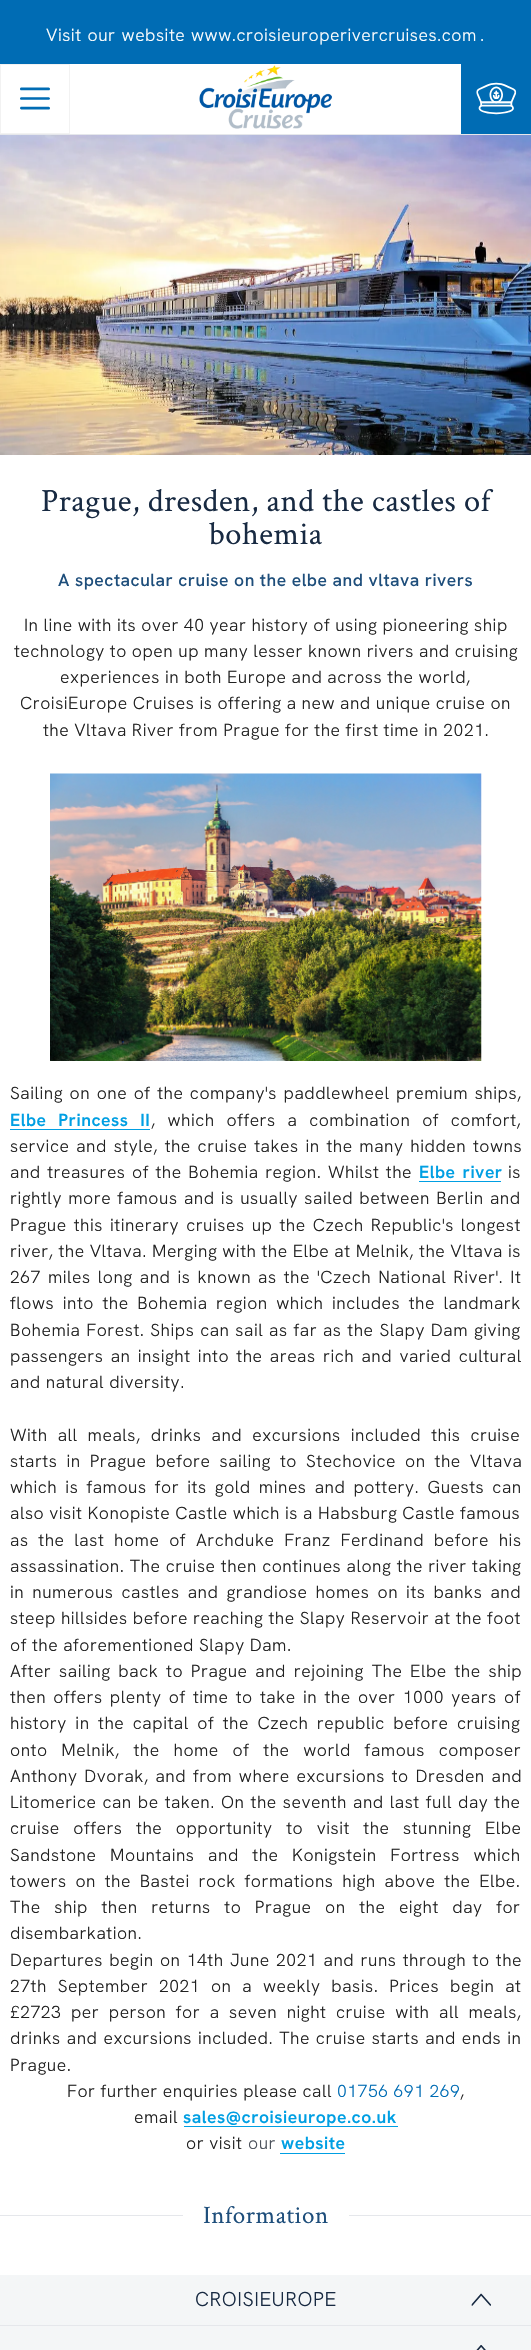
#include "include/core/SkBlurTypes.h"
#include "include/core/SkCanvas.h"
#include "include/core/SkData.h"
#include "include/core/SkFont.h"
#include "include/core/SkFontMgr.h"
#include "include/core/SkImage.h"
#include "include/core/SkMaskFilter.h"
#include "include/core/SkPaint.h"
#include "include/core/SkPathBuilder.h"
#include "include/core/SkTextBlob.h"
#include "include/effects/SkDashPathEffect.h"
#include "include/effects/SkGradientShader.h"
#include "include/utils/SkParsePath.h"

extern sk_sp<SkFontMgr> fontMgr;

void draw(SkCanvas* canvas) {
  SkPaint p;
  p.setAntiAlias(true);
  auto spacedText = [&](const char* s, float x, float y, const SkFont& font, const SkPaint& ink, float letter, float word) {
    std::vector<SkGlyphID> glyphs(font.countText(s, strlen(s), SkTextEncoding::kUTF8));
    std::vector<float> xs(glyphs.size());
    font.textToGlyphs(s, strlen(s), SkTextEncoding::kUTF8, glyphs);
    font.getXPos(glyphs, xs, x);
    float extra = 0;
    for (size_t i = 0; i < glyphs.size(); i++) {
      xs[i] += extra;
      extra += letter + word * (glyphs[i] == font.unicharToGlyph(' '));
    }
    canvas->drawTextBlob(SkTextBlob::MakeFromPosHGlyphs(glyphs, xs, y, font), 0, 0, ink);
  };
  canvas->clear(SK_ColorWHITE);
  p.setColor(SkColorSetRGB(0, 108, 180));
  canvas->drawRect(SkRect::MakeLTRB(0, 0, 531, 64), p);
  p.setColor(SkColorSetRGB(229, 231, 235));
  canvas->drawRect(SkRect::MakeLTRB(0, 134, 531, 135), p);
  p.setStyle(SkPaint::kStroke_Style);
  p.setStrokeWidth(1);
  p.setColor(SkColorSetRGB(242, 242, 242));
  canvas->drawRect(SkRect::MakeLTRB(0.5f, 64.5f, 69.5f, 133.5f), p);
  canvas->drawImageRect(SkImages::DeferredFromEncodedData(SkData::MakeFromFileName("images/1.png")), SkRect::MakeLTRB(20, 87, 50, 110), SkSamplingOptions());
  canvas->drawImageRect(SkImages::DeferredFromEncodedData(SkData::MakeFromFileName("images/2.png")), SkRect::MakeLTRB(199, 65, 332, 129), SkSamplingOptions());
  p.setStyle(SkPaint::kFill_Style);
  p.setColor(SkColorSetRGB(0, 108, 180));
  canvas->drawRect(SkRect::MakeLTRB(461, 64, 531, 134), p);
  canvas->drawImageRect(SkImages::DeferredFromEncodedData(SkData::MakeFromFileName("images/3.png")), SkRect::MakeLTRB(476, 82, 517, 115), SkSamplingOptions());
  canvas->drawImageRect(SkImages::DeferredFromEncodedData(SkData::MakeFromFileName("images/4.png")), SkRect::MakeLTRB(0, 135, 531, 455), SkSamplingOptions());
  canvas->drawImageRect(SkImages::DeferredFromEncodedData(SkData::MakeFromFileName("images/5.png")), SkRect::MakeLTRB(50, 773, 482, 1061), SkSamplingOptions());
  p.setColor(SkColorSetRGB(0, 159, 227));
  canvas->drawRect(SkRect::MakeLTRB(10, 1129, 150, 1130), p);
  canvas->drawRect(SkRect::MakeLTRB(419, 1181, 501, 1182), p);
  canvas->drawRect(SkRect::MakeLTRB(184, 2126, 398, 2127), p);
  canvas->drawRect(SkRect::MakeLTRB(280, 2153, 345, 2154), p);
  p.setColor(SkColorSetRGB(229, 231, 235));
  canvas->drawRect(SkRect::MakeLTRB(0, 2215, 183, 2216), p);
  canvas->drawRect(SkRect::MakeLTRB(349, 2215, 531, 2216), p);
  p.setColor(SkColorSetRGB(244, 246, 247));
  canvas->drawRect(SkRect::MakeLTRB(0, 2275, 531, 2350), p);
  p.setColor(SkColorSetRGB(229, 231, 235));
  canvas->drawRect(SkRect::MakeLTRB(0, 2325, 531, 2326), p);
  canvas->drawImageRect(SkImages::DeferredFromEncodedData(SkData::MakeFromFileName("images/6.png")), SkRect::MakeLTRB(471, 2293, 491, 2306), SkSamplingOptions());
  canvas->drawImageRect(SkImages::DeferredFromEncodedData(SkData::MakeFromFileName("images/7.png")), SkRect::MakeLTRB(476, 2345, 486, 2350), SkSamplingOptions());
  SkFont font1(fontMgr->matchFamilyStyle("Hanken Grotesk", SkFontStyle(300, SkFontStyle::kNormal_Width, SkFontStyle::kUpright_Slant)), 17.5f);
  font1.setSubpixel(true);
  p.setColor(SK_ColorWHITE);
  spacedText("Visit our website", 46, 41, font1, p, 0.5f, 1);
  spacedText("www.croisieuroperivercruises.com", 191, 41, font1, p, 0.5f, 0);
  spacedText(".", 480, 41, font1, p, 0.5f, 0);
  SkFont font2(fontMgr->matchFamilyStyle("Crimson Text", SkFontStyle::Normal()), 32.5f);
  font2.setSubpixel(true);
  p.setColor(SkColorSetRGB(24, 42, 66));
  spacedText("Prague, dresden, and the castles of", 41, 511, font2, p, 0.5f, 0);
  spacedText("bohemia", 209, 544, font2, p, 0.5f, 0);
  SkFont font3(fontMgr->matchFamilyStyle("Hanken Grotesk", SkFontStyle(500, SkFontStyle::kNormal_Width, SkFontStyle::kUpright_Slant)), 17.5f);
  font3.setSubpixel(true);
  p.setColor(SkColorSetRGB(30, 78, 123));
  spacedText("A spectacular cruise on the elbe and vltava rivers", 58, 586, font3, p, 0.5f, 0);
  p.setColor(SkColorSetRGB(33, 33, 33));
  spacedText("In line with its over 40 year history of using pioneering ship", 24, 631, font1, p, 0.5f, 0);
  spacedText("technology to open up many lesser known rivers and cruising", 14, 657, font1, p, 0.5f, 0);
  spacedText("experiences in both Europe and across the world,", 60, 683, font1, p, 0.5f, 0);
  spacedText("CroisiEurope Cruises is offering a new and unique cruise on", 20, 709, font1, p, 0.5f, 0);
  spacedText("the Vltava River from Prague for the first time in 2021.", 43, 736, font1, p, 0.5f, 0);
  spacedText("Sailing on one of the company's paddlewheel premium ships,", 10, 1099, font1, p, 0.5f, 1.5f);
  SkFont font4(fontMgr->matchFamilyStyle("Hanken Grotesk", SkFontStyle(600, SkFontStyle::kNormal_Width, SkFontStyle::kUpright_Slant)), 17.5f);
  font4.setSubpixel(true);
  p.setColor(SkColorSetRGB(0, 159, 227));
  spacedText("Elbe Princess II", 10, 1126, font4, p, 0.5f, 6.75f);
  p.setColor(SkColorSetRGB(33, 33, 33));
  spacedText(", which offers a combination of comfort,", 151, 1126, font1, p, 0.5f, 6.75f);
  spacedText("service and style, the cruise takes in the many hidden towns", 10, 1152, font1, p, 0.5f, 1.75f);
  spacedText("and treasures of the Bohemia region. Whilst the", 10, 1178, font1, p, 0.5f, 1.5f);
  p.setColor(SkColorSetRGB(0, 159, 227));
  spacedText("Elbe river", 419, 1178, font4, p, 0.5f, 2);
  p.setColor(SkColorSetRGB(33, 33, 33));
  spacedText("is", 508, 1178, font1, p, 0.5f, 0);
  spacedText("rightly more famous and is usually sailed between Berlin and", 10, 1204, font1, p, 0.5f, 1.25f);
  spacedText("Prague this itinerary cruises up the Czech Republic's longest", 10, 1231, font1, p, 0.5f, 2);
  spacedText("river, the Vltava. Merging with the Elbe at Melnik, the Vltava is", 10, 1257, font1, p, 0.5f, 0);
  spacedText("267 miles long and is known as the 'Czech National River'. It", 10, 1283, font1, p, 0.5f, 2);
  spacedText("flows into the Bohemia region which includes the landmark", 10, 1309, font1, p, 0.5f, 3.5f);
  spacedText("Bohemia Forest. Ships can sail as far as the Slapy Dam giving", 10, 1336, font1, p, 0.5f, 0.8f);
  spacedText("passengers an insight into the areas rich and varied cultural", 10, 1362, font1, p, 0.5f, 2.25f);
  spacedText("and natural diversity.", 10, 1388, font1, p, 0.5f, 0);
  spacedText("With all meals, drinks and excursions included this cruise", 10, 1441, font1, p, 0.5f, 5);
  spacedText("starts in Prague before sailing to Stechovice on the Vltava", 10, 1467, font1, p, 0.5f, 4);
  spacedText("which is famous for its gold mines and pottery. Guests can", 10, 1493, font1, p, 0.5f, 3.1f);
  spacedText("also visit Konopiste Castle which is a Habsburg Castle famous", 10, 1519, font1, p, 0.5f, 0);
  spacedText("as the last home of Archduke Franz Ferdinand before his", 10, 1546, font1, p, 0.5f, 4.75f);
  spacedText("assassination. The cruise then continues along the river taking", 10, 1572, font1, p, 0.5f, 0.25f);
  spacedText("in numerous castles and grandiose homes on its banks and", 10, 1598, font1, p, 0.5f, 3);
  spacedText("steep hillsides before reaching the Slapy Reservoir at the foot", 10, 1624, font1, p, 0.5f, 0.1f);
  spacedText("of the aforementioned Slapy Dam.", 10, 1651, font1, p, 0.5f, 0);
  spacedText("After sailing back to Prague and rejoining The Elbe the ship", 10, 1677, font1, p, 0.5f, 2.75f);
  spacedText("then offers plenty of time to take in the over 1000 years of", 10, 1703, font1, p, 0.5f, 2.25f);
  spacedText("history in the capital of the Czech republic before cruising", 10, 1729, font1, p, 0.5f, 3.5f);
  spacedText("onto Melnik, the home of the world famous composer", 10, 1756, font1, p, 0.5f, 8.75f);
  spacedText("Anthony Dvorak, and from where excursions to Dresden and", 10, 1782, font1, p, 0.5f, 1.75f);
  spacedText("Litomerice can be taken. On the seventh and last full day the", 10, 1808, font1, p, 0.5f, 1);
  spacedText("cruise offers the opportunity to visit the stunning Elbe", 10, 1834, font1, p, 0.5f, 8.5f);
  spacedText("Sandstone Mountains and the Konigstein Fortress which", 10, 1861, font1, p, 0.5f, 8.5f);
  spacedText("towers on the Bastei rock formations high above the Elbe.", 10, 1887, font1, p, 0.5f, 3.75f);
  spacedText("The ship then returns to Prague on the eight day for", 10, 1913, font1, p, 0.5f, 8.5f);
  spacedText("disembarkation.", 10, 1939, font1, p, 0.5f, 0);
  spacedText("Departures begin on 14th June 2021 and runs through to the", 10, 1966, font1, p, 0.5f, 1.25f);
  spacedText("27th September 2021 on a weekly basis. Prices begin at", 10, 1992, font1, p, 0.5f, 5.75f);
  spacedText("£2723 per person for a seven night cruise with all meals,", 10, 2018, font1, p, 0.5f, 4.5f);
  spacedText("drinks and excursions included. The cruise starts and ends in", 10, 2044, font1, p, 0.5f, 1);
  spacedText("Prague.", 10, 2071, font1, p, 0.5f, 0);
  spacedText("For further enquiries please call", 67, 2097, font1, p, 0.5f, 0);
  p.setColor(SkColorSetRGB(0, 108, 180));
  spacedText("01756 691 269", 337, 2097, font1, p, 0.5f, 0);
  p.setColor(SkColorSetRGB(33, 33, 33));
  spacedText(",", 460, 2097, font1, p, 0.5f, 0);
  spacedText("email", 134, 2123, font1, p, 0.5f, 0);
  p.setColor(SkColorSetRGB(0, 159, 227));
  spacedText("sales@croisieurope.co.uk", 183, 2123, font4, p, 0.5f, 0);
  p.setColor(SkColorSetRGB(33, 33, 33));
  spacedText("or visit", 186, 2149, font1, p, 0.5f, 0);
  p.setColor(SkColorSetRGB(75, 81, 91));
  spacedText("our", 248, 2149, font1, p, 0.5f, 0);
  p.setColor(SkColorSetRGB(0, 159, 227));
  spacedText("website", 281, 2149, font4, p, 0.5f, 0);
  SkFont font5(fontMgr->matchFamilyStyle("Crimson Text", SkFontStyle::Normal()), 25);
  font5.setSubpixel(true);
  p.setColor(SkColorSetRGB(30, 78, 123));
  spacedText("Information", 203, 2223, font5, p, 0.5f, 0);
  SkFont font6(fontMgr->matchFamilyStyle("Hanken Grotesk", SkFontStyle(300, SkFontStyle::kNormal_Width, SkFontStyle::kUpright_Slant)), 20);
  font6.setSubpixel(true);
  p.setColor(SkColorSetRGB(24, 42, 66));
  spacedText("CROISIEUROPE", 195, 2306, font6, p, 0.5f, 0);
}
